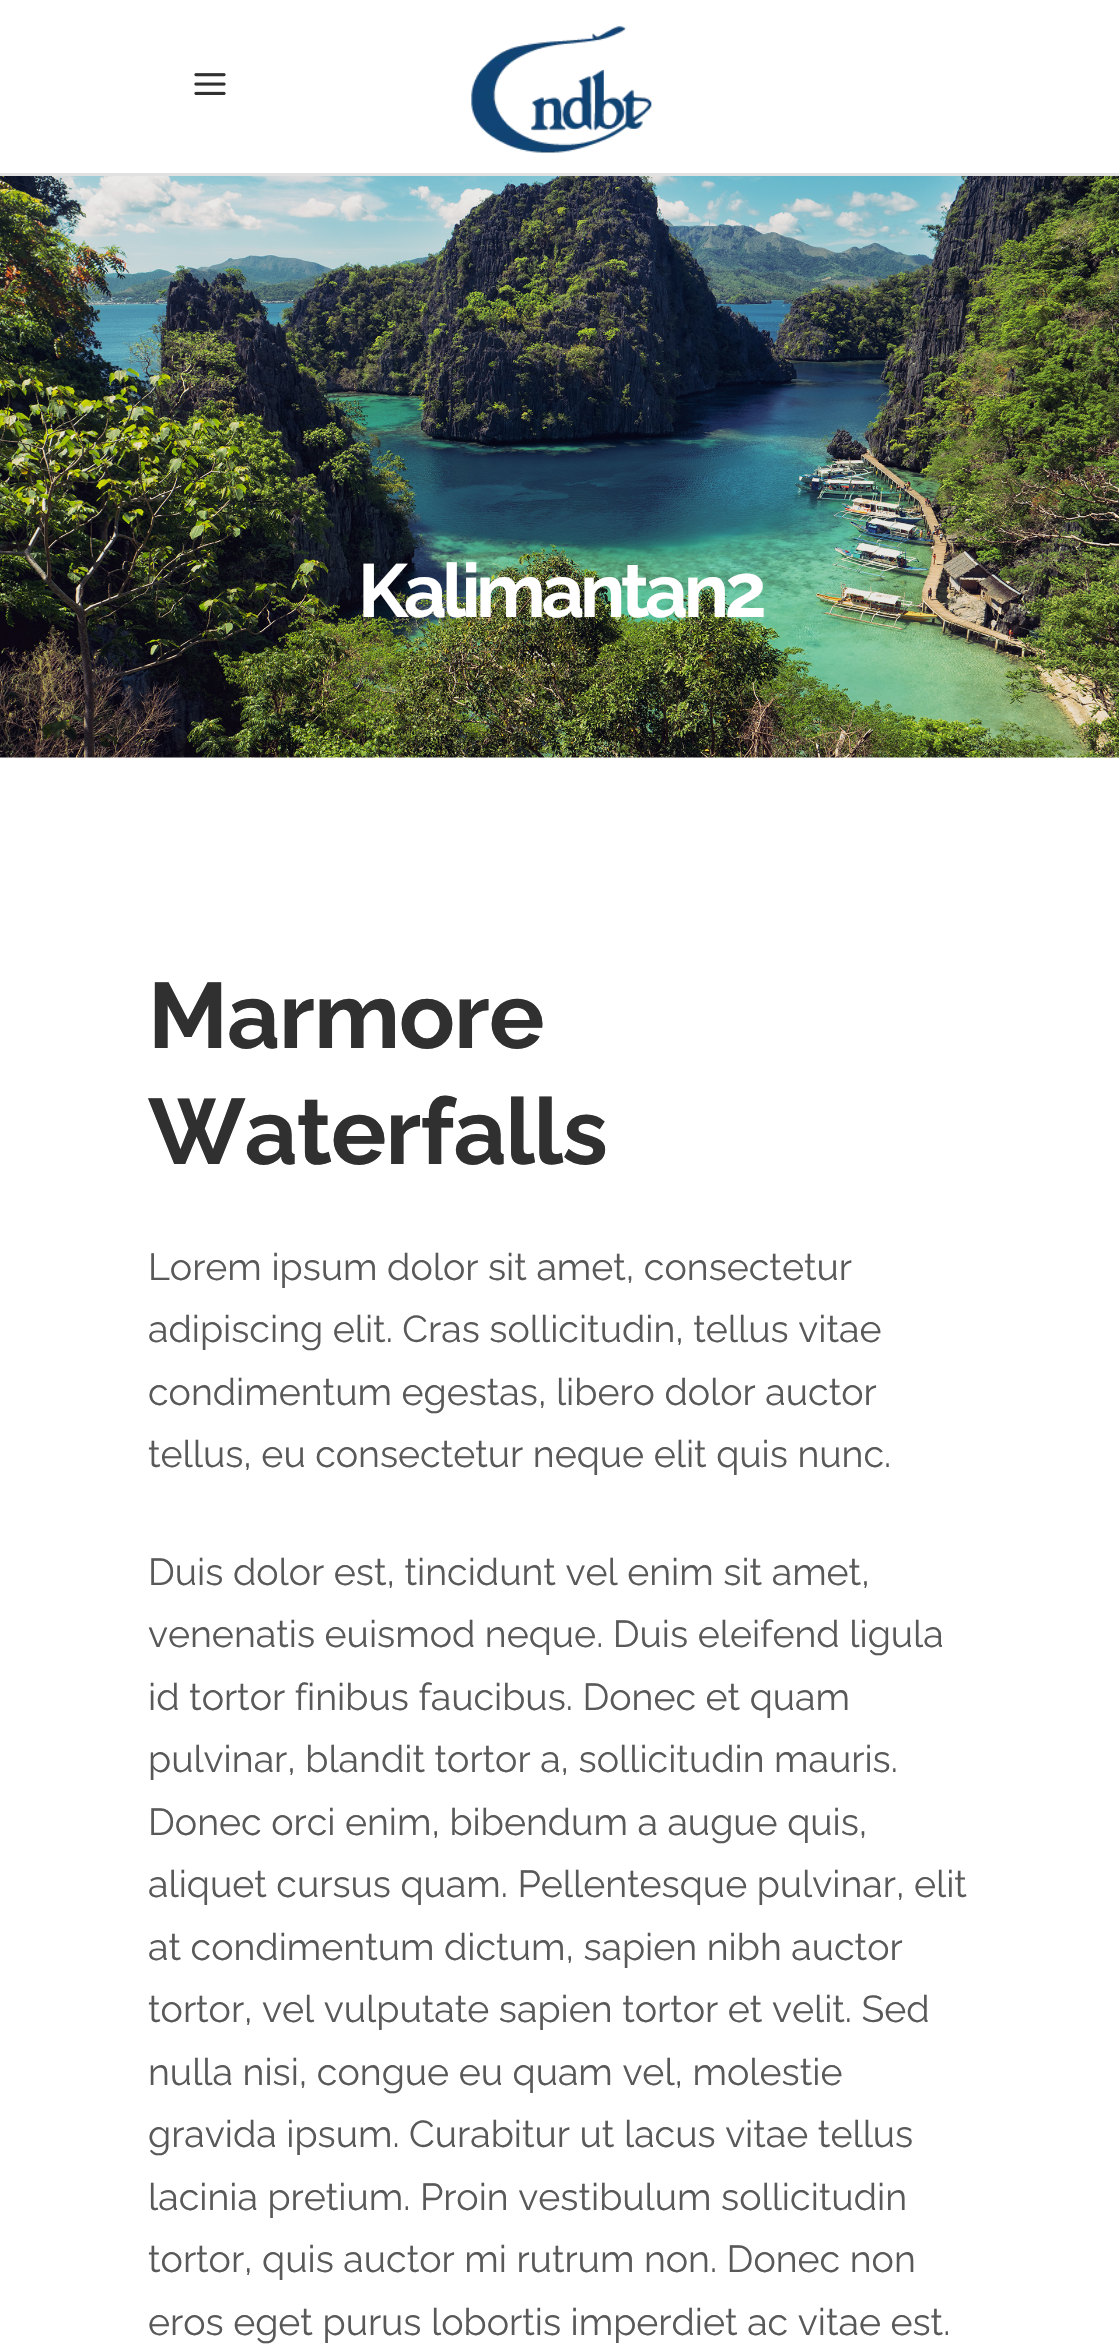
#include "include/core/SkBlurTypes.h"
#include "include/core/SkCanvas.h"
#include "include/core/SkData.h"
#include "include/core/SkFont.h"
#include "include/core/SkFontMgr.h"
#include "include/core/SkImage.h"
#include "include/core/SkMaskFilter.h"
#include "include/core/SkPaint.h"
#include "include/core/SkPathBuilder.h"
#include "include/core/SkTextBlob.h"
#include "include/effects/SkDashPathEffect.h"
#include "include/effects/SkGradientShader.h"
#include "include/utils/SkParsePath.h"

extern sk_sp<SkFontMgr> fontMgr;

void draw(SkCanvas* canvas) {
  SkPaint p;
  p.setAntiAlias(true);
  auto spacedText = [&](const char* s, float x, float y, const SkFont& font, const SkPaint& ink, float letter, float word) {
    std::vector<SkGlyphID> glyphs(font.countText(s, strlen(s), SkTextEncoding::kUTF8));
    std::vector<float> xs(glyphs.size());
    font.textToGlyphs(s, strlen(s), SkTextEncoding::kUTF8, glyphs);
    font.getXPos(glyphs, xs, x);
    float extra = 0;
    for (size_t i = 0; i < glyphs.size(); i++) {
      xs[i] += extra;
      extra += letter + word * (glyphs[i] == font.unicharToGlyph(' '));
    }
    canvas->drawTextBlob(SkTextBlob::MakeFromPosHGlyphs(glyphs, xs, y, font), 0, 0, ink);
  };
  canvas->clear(SK_ColorWHITE);
  p.setColor(SkColorSetRGB(225, 225, 225));
  canvas->drawRect(SkRect::MakeLTRB(0, 173, 1119, 176), p);
  canvas->drawImageRect(SkImages::DeferredFromEncodedData(SkData::MakeFromFileName("images/1.png")), SkRect::MakeLTRB(194, 73, 226, 95), SkSamplingOptions());
  canvas->drawImageRect(SkImages::DeferredFromEncodedData(SkData::MakeFromFileName("images/2.png")), SkRect::MakeLTRB(471, 26, 652, 153), SkSamplingOptions());
  p.setColor(SkColorSetRGB(246, 246, 246));
  canvas->drawRect(SkRect::MakeLTRB(0, 757, 1119, 758), p);
  canvas->drawImageRect(SkImages::DeferredFromEncodedData(SkData::MakeFromFileName("images/3.png")), SkRect::MakeLTRB(0, 176, 1119, 758), SkSamplingOptions());
  SkFont font1(fontMgr->matchFamilyStyle("Raleway", SkFontStyle::Bold()), 75);
  font1.setSubpixel(true);
  p.setColor(SK_ColorWHITE);
  spacedText("Kalimantan2", 358, 617, font1, p, -4.5f, 0);
  SkFont font2(fontMgr->matchFamilyStyle("Raleway", SkFontStyle::Bold()), 92.5f);
  font2.setSubpixel(true);
  p.setColor(SkColorSetRGB(48, 48, 48));
  spacedText("Marmore", 148, 1048, font2, p, -1, 0);
  spacedText("Waterfalls", 148, 1164, font2, p, -1, 0);
  SkFont font3(fontMgr->matchFamilyStyle("Raleway", SkFontStyle::Normal()), 37.5f);
  font3.setSubpixel(true);
  p.setColor(SkColorSetRGB(89, 89, 89));
  canvas->drawString("Lorem ipsum dolor sit amet, consectetur", 148, 1280, font3, p);
  canvas->drawString("adipiscing elit. Cras sollicitudin, tellus vitae", 148, 1342, font3, p);
  canvas->drawString("condimentum egestas, libero dolor auctor", 148, 1405, font3, p);
  canvas->drawString("tellus, eu consectetur neque elit quis nunc.", 148, 1467, font3, p);
  canvas->drawString("Duis dolor est, tincidunt vel enim sit amet,", 148, 1585, font3, p);
  canvas->drawString("venenatis euismod neque. Duis eleifend ligula", 148, 1647, font3, p);
  canvas->drawString("id tortor finibus faucibus. Donec et quam", 148, 1710, font3, p);
  canvas->drawString("pulvinar, blandit tortor a, sollicitudin mauris.", 148, 1772, font3, p);
  canvas->drawString("Donec orci enim, bibendum a augue quis,", 148, 1835, font3, p);
  canvas->drawString("aliquet cursus quam. Pellentesque pulvinar, elit", 148, 1897, font3, p);
  canvas->drawString("at condimentum dictum, sapien nibh auctor", 148, 1960, font3, p);
  canvas->drawString("tortor, vel vulputate sapien tortor et velit. Sed", 148, 2022, font3, p);
  canvas->drawString("nulla nisi, congue eu quam vel, molestie", 148, 2085, font3, p);
  canvas->drawString("gravida ipsum. Curabitur ut lacus vitae tellus", 148, 2147, font3, p);
  canvas->drawString("lacinia pretium. Proin vestibulum sollicitudin", 148, 2210, font3, p);
  canvas->drawString("tortor, quis auctor mi rutrum non. Donec non", 148, 2272, font3, p);
  canvas->drawString("eros eget purus lobortis imperdiet ac vitae est.", 148, 2335, font3, p);
}
